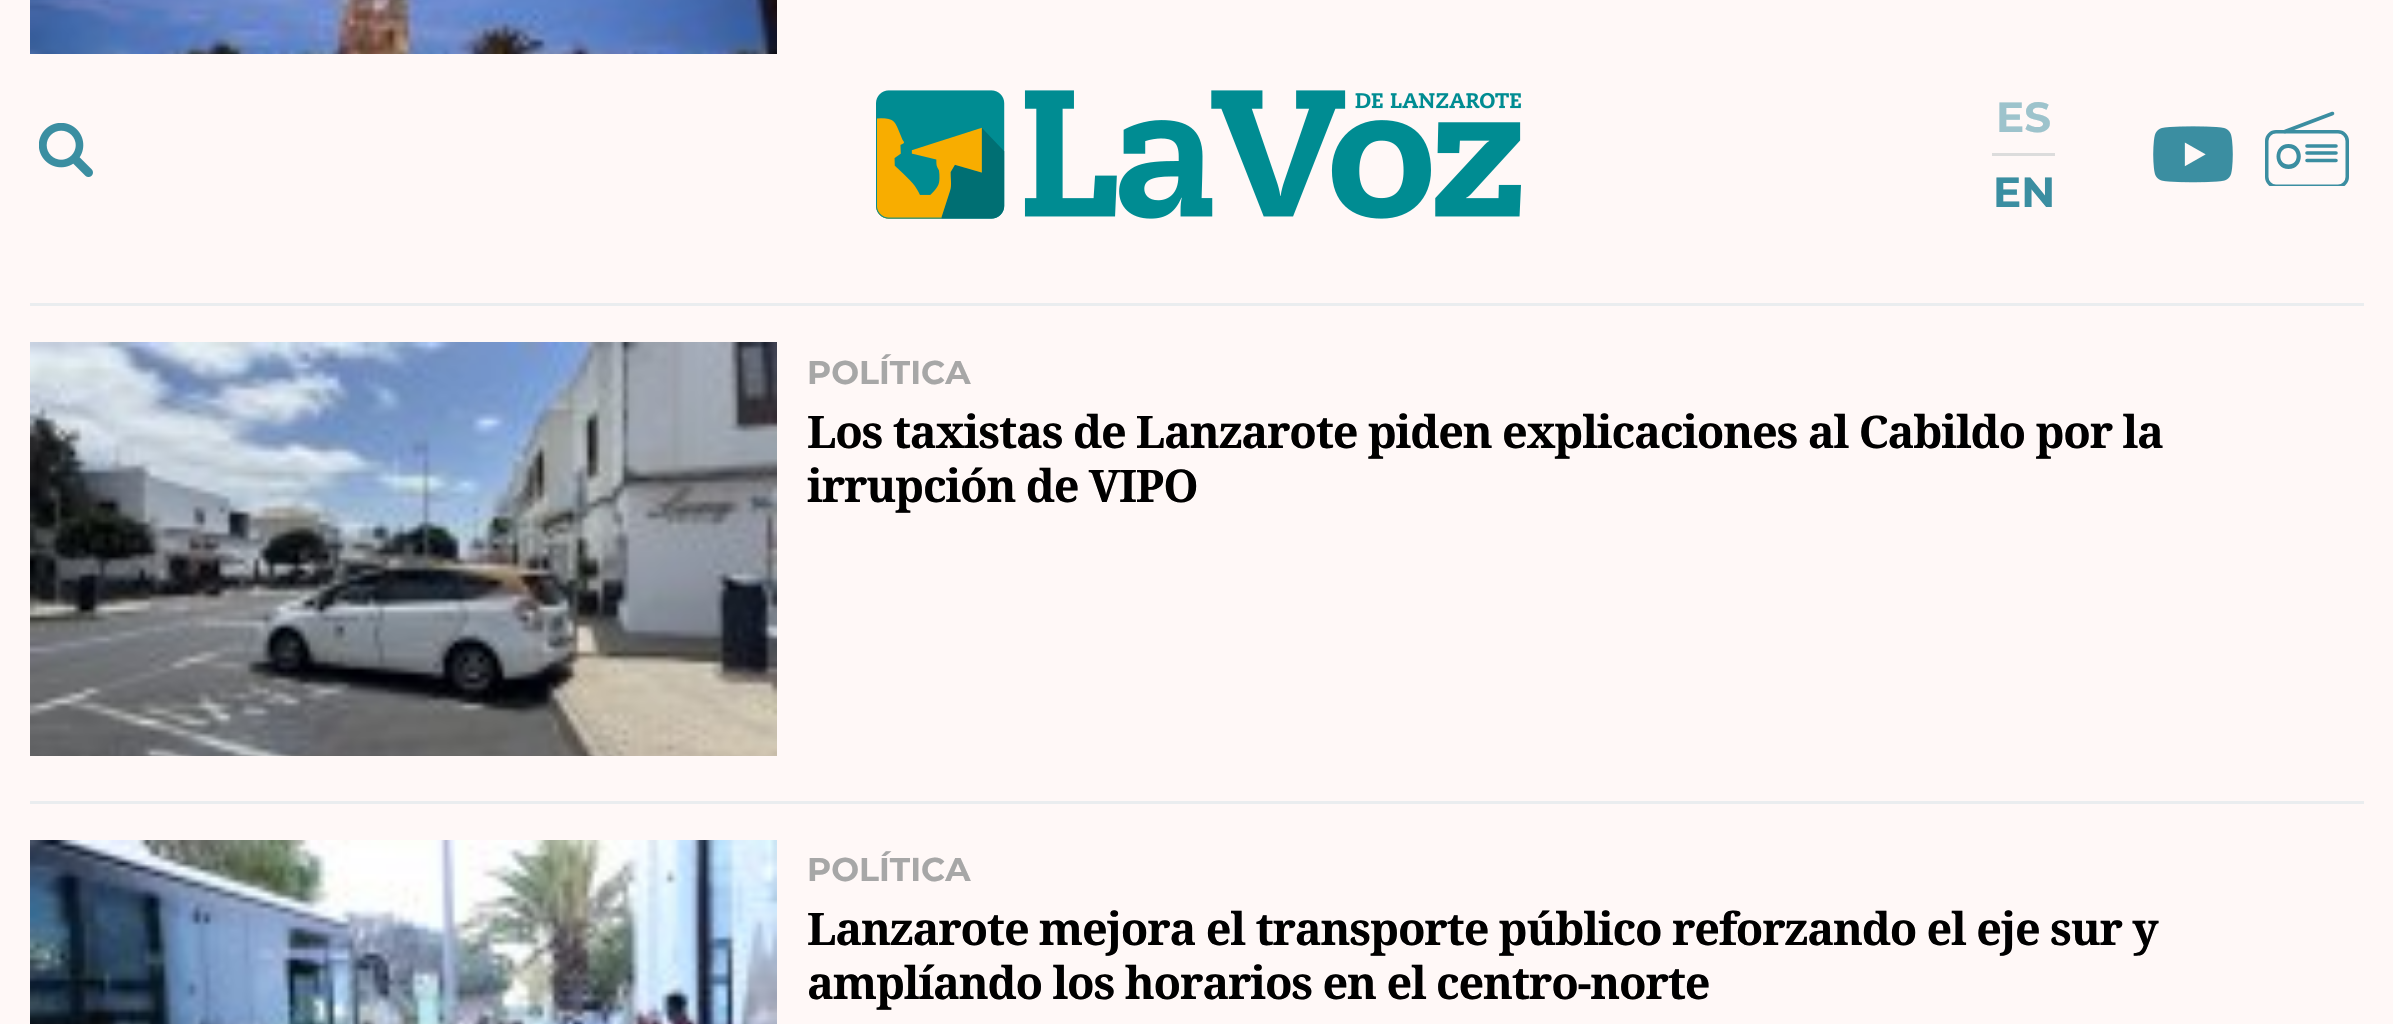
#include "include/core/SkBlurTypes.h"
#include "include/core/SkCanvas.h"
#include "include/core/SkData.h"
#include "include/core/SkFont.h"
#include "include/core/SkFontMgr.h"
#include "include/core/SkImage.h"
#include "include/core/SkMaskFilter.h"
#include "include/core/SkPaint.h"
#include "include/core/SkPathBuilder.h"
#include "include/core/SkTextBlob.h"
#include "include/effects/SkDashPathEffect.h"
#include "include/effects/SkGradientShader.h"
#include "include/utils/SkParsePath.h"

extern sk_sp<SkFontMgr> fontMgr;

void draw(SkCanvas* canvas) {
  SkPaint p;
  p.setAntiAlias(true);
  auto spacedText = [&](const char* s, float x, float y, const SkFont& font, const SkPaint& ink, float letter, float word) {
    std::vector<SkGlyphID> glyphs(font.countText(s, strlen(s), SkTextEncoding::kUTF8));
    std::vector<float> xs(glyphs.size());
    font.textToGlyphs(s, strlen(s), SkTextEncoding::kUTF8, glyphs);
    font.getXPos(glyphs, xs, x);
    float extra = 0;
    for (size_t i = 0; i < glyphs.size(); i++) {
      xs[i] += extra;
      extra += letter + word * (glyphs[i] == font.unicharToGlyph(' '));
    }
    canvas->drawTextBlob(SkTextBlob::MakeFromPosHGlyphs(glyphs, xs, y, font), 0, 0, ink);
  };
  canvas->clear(SkColorSetRGB(255, 248, 247));
  canvas->drawImageRect(SkImages::DeferredFromEncodedData(SkData::MakeFromFileName("images/1.png")), SkRect::MakeLTRB(39, 123, 93, 177), SkSamplingOptions());
  canvas->drawImageRect(SkImages::DeferredFromEncodedData(SkData::MakeFromFileName("images/2.png")), SkRect::MakeLTRB(876, 90, 1521, 219), SkSamplingOptions());
  p.setColor(SkColorSetRGB(220, 220, 220));
  canvas->drawRect(SkRect::MakeLTRB(1992, 153, 2055, 156), p);
  canvas->drawImageRect(SkImages::DeferredFromEncodedData(SkData::MakeFromFileName("images/3.png")), SkRect::MakeLTRB(2153, 126, 2233, 183), SkSamplingOptions());
  p.setColor(SkColorSetRGB(59, 142, 161));
  canvas->drawPath(SkPathBuilder().moveTo(2288.5f, 144).cubicTo(2272.5f, 144, 2272.5f, 169, 2288.5f, 169).cubicTo(2305, 169, 2305, 144, 2288.5f, 144).close().moveTo(2288.5f, 164.5f).cubicTo(2278, 164.5f, 2277.5f, 148.5f, 2288, 148).cubicTo(2299, 147.5f, 2300, 164.5f, 2288.5f, 164.5f).close().detach(), p);
  canvas->save();
  canvas->clipRect(SkRect::MakeLTRB(2265, 111, 2349, 186));
  p.setStyle(SkPaint::kStroke_Style);
  p.setStrokeWidth(3.5f);
  canvas->drawRoundRect(SkRect::MakeLTRB(2266.75f, 131.75f, 2347.25f, 186.25f), 9.25f, 9.25f, p);
  canvas->restore();
  p.setStrokeWidth(3.6f);
  p.setStrokeCap(SkPaint::kRound_Cap);
  canvas->drawPath(SkPathBuilder().moveTo(2307, 146).lineTo(2336, 146).moveTo(2285, 131.5f).lineTo(2332.5f, 113.5f).moveTo(2307, 153).lineTo(2336, 153).moveTo(2307, 160.5f).lineTo(2336, 160.5f).detach(), p);
  p.setStyle(SkPaint::kFill_Style);
  p.setColor(SkColorSetRGB(234, 237, 239));
  canvas->drawRect(SkRect::MakeLTRB(30, 303, 2364, 306), p);
  canvas->drawImageRect(SkImages::DeferredFromEncodedData(SkData::MakeFromFileName("images/4.png")), SkRect::MakeLTRB(30, 0, 777, 54), SkSamplingOptions());
  canvas->drawRect(SkRect::MakeLTRB(30, 801, 2364, 804), p);
  canvas->drawImageRect(SkImages::DeferredFromEncodedData(SkData::MakeFromFileName("images/5.png")), SkRect::MakeLTRB(30, 342, 777, 756), SkSamplingOptions());
  canvas->drawImageRect(SkImages::DeferredFromEncodedData(SkData::MakeFromFileName("images/6.png")), SkRect::MakeLTRB(30, 840, 777, 1024), SkSamplingOptions());
  SkFont font1(fontMgr->matchFamilyStyle("Montserrat", SkFontStyle::Bold()), 42);
  font1.setSubpixel(true);
  p.setColor(SkColorSetRGB(157, 195, 204));
  canvas->drawString("ES", 1996, 132, font1, p);
  p.setColor(SkColorSetRGB(59, 142, 161));
  canvas->drawString("EN", 1993, 207, font1, p);
  SkFont font2(fontMgr->matchFamilyStyle("Montserrat", SkFontStyle::Bold()), 33);
  font2.setSubpixel(true);
  p.setColor(SkColorSetRGB(167, 167, 167));
  canvas->drawString("POLÍTICA", 807, 384, font2, p);
  SkFont font3(fontMgr->matchFamilyStyle("Noto Serif", SkFontStyle::Bold()), 45);
  font3.setSubpixel(true);
  p.setColor(SK_ColorBLACK);
  spacedText("Los taxistas de Lanzarote piden explicaciones al Cabildo por la", 807, 448, font3, p, -1.2f, 0);
  spacedText("irrupción de VIPO", 807, 502, font3, p, -1.2f, 0);
  p.setColor(SkColorSetRGB(167, 167, 167));
  canvas->drawString("POLÍTICA", 807, 881, font2, p);
  p.setColor(SK_ColorBLACK);
  spacedText("Lanzarote mejora el transporte público reforzando el eje sur y", 807, 945, font3, p, -1.2f, 0);
  spacedText("amplíando los horarios en el centro-norte", 807, 999, font3, p, -1.2f, 0);
}
